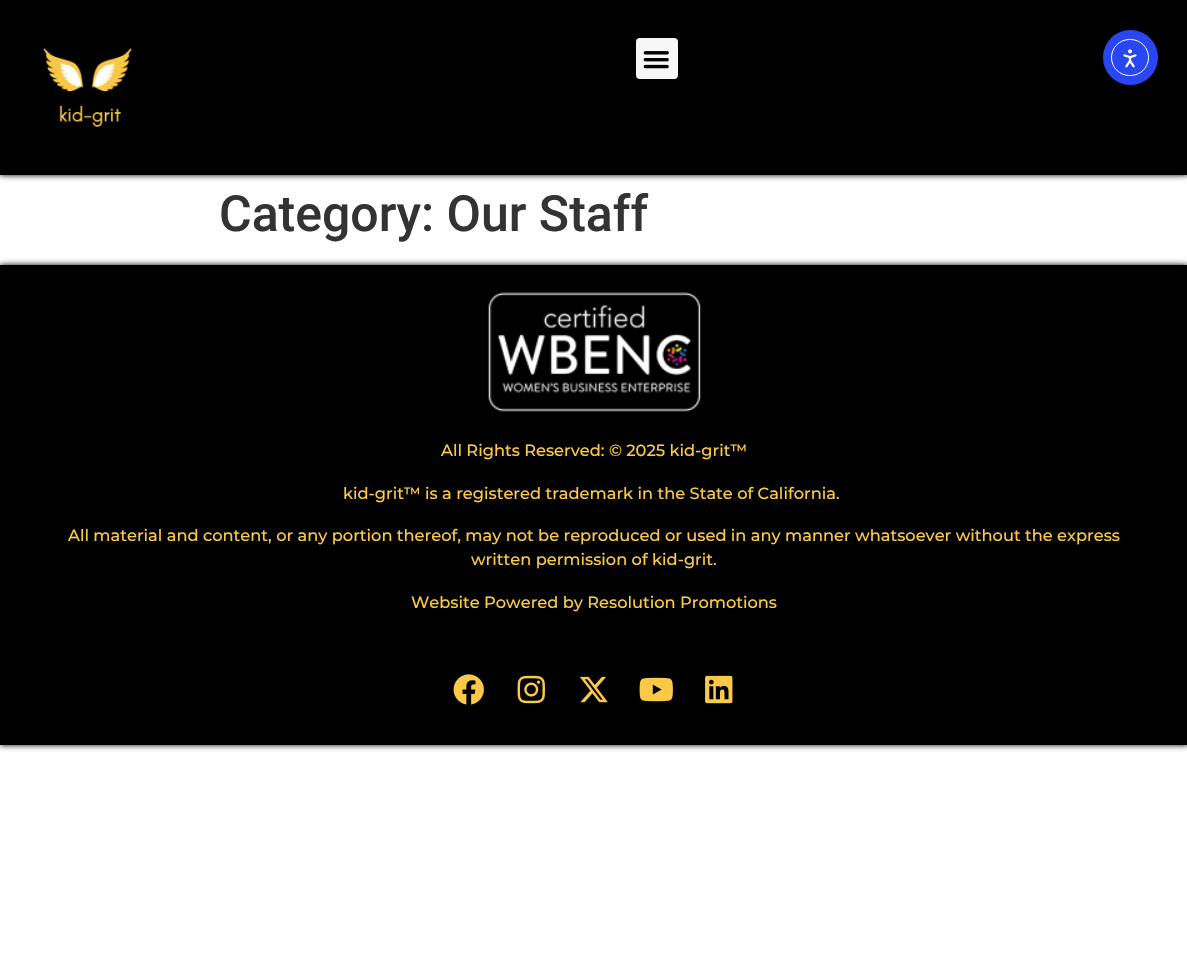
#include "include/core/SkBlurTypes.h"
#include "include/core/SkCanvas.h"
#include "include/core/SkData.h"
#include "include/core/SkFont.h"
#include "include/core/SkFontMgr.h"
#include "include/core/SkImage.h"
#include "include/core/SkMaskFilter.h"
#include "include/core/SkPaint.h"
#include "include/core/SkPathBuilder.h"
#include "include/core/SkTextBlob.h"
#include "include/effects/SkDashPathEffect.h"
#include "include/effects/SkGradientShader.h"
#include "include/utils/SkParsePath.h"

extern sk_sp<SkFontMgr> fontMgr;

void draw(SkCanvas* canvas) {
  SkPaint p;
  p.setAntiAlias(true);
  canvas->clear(SK_ColorWHITE);
  p.setColor(SK_ColorBLACK);
  p.setMaskFilter(SkMaskFilter::MakeBlur(kNormal_SkBlurStyle, 3));
  canvas->drawRect(SkRect::MakeLTRB(0, 0, 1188, 175), p);
  p.setMaskFilter(nullptr);
  canvas->drawRect(SkRect::MakeLTRB(0, 0, 1187, 175), p);
  canvas->drawImageRect(SkImages::DeferredFromEncodedData(SkData::MakeFromFileName("images/1.png")), SkRect::MakeLTRB(43, 48, 132, 127), SkSamplingOptions());
  p.setColor(SkColorSetRGB(247, 247, 247));
  canvas->drawRoundRect(SkRect::MakeLTRB(636, 38, 678, 79), 4, 4, p);
  canvas->drawImageRect(SkImages::DeferredFromEncodedData(SkData::MakeFromFileName("images/2.png")), SkRect::MakeLTRB(643, 51, 669, 69), SkSamplingOptions());
  p.setColor(SkColorSetRGB(40, 71, 243));
  canvas->drawCircle(1130.5f, 57.5f, 27.5f, p);
  p.setStyle(SkPaint::kStroke_Style);
  p.setStrokeWidth(1);
  p.setColor(SK_ColorWHITE);
  canvas->drawRoundRect(SkRect::MakeLTRB(1111.5f, 39.5f, 1148.5f, 75.5f), 18, 18, p);
  canvas->drawImageRect(SkImages::DeferredFromEncodedData(SkData::MakeFromFileName("images/3.png")), SkRect::MakeLTRB(1123, 49, 1137, 68), SkSamplingOptions());
  p.setStyle(SkPaint::kFill_Style);
  p.setColor(SK_ColorBLACK);
  p.setMaskFilter(SkMaskFilter::MakeBlur(kNormal_SkBlurStyle, 3));
  canvas->drawRect(SkRect::MakeLTRB(0, 265, 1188, 745), p);
  p.setMaskFilter(nullptr);
  canvas->drawRect(SkRect::MakeLTRB(0, 265, 1187, 745), p);
  canvas->drawImageRect(SkImages::DeferredFromEncodedData(SkData::MakeFromFileName("images/4.png")), SkRect::MakeLTRB(487, 292, 701, 412), SkSamplingOptions());
  canvas->drawImageRect(SkImages::DeferredFromEncodedData(SkData::MakeFromFileName("images/5.png")), SkRect::MakeLTRB(453, 674, 484, 705), SkSamplingOptions());
  canvas->drawImageRect(SkImages::DeferredFromEncodedData(SkData::MakeFromFileName("images/6.png")), SkRect::MakeLTRB(517, 675, 545, 704), SkSamplingOptions());
  canvas->drawImageRect(SkImages::DeferredFromEncodedData(SkData::MakeFromFileName("images/7.png")), SkRect::MakeLTRB(580, 676, 608, 703), SkSamplingOptions());
  canvas->drawImageRect(SkImages::DeferredFromEncodedData(SkData::MakeFromFileName("images/8.png")), SkRect::MakeLTRB(639, 677, 673, 702), SkSamplingOptions());
  canvas->drawImageRect(SkImages::DeferredFromEncodedData(SkData::MakeFromFileName("images/9.png")), SkRect::MakeLTRB(705, 675, 733, 704), SkSamplingOptions());
  SkFont font1(fontMgr->matchFamilyStyle("Roboto", SkFontStyle(500, SkFontStyle::kNormal_Width, SkFontStyle::kUpright_Slant)), 50);
  font1.setSubpixel(true);
  p.setColor(SkColorSetRGB(51, 51, 51));
  canvas->drawString("Category: Our Staff", 219, 231, font1, p);
  SkFont font2(fontMgr->matchFamilyStyle("Montserrat", SkFontStyle(500, SkFontStyle::kNormal_Width, SkFontStyle::kUpright_Slant)), 16.25f);
  font2.setSubpixel(true);
  p.setColor(SkColorSetRGB(251, 200, 71));
  canvas->drawString("All Rights Reserved: © 2025 kid-grit™", 441, 456, font2, p);
  canvas->drawString("kid-grit™ is a registered trademark in the State of California.", 343, 499, font2, p);
  canvas->drawString("All material and content, or any portion thereof, may not be reproduced or used in any manner whatsoever without the express", 68, 541, font2, p);
  canvas->drawString("written permission of kid-grit.", 471, 565, font2, p);
  canvas->drawString("Website Powered by Resolution Promotions", 411, 608, font2, p);
}
